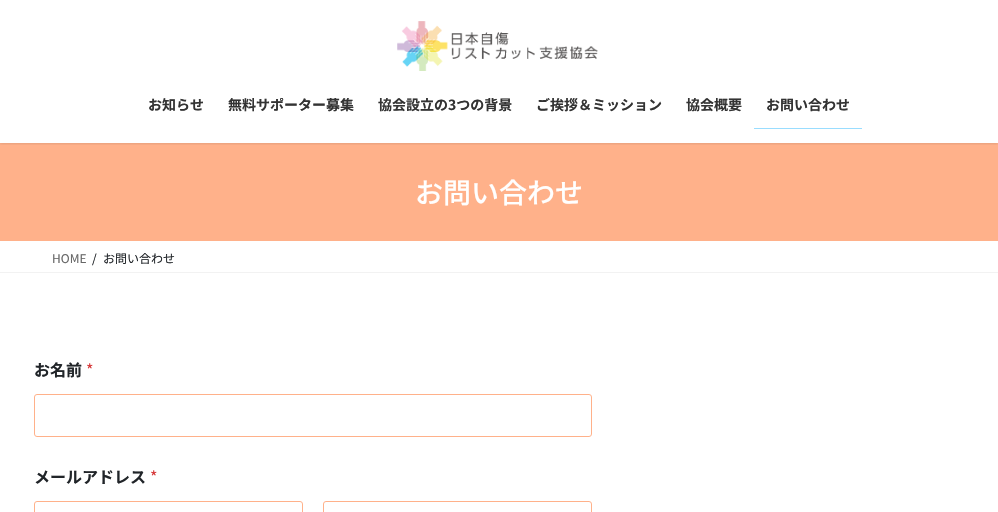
#include "include/core/SkBlurTypes.h"
#include "include/core/SkCanvas.h"
#include "include/core/SkData.h"
#include "include/core/SkFont.h"
#include "include/core/SkFontMgr.h"
#include "include/core/SkImage.h"
#include "include/core/SkMaskFilter.h"
#include "include/core/SkPaint.h"
#include "include/core/SkPathBuilder.h"
#include "include/core/SkTextBlob.h"
#include "include/effects/SkDashPathEffect.h"
#include "include/effects/SkGradientShader.h"
#include "include/utils/SkParsePath.h"

extern sk_sp<SkFontMgr> fontMgr;

void draw(SkCanvas* canvas) {
  SkPaint p;
  p.setAntiAlias(true);
  canvas->clear(SK_ColorWHITE);
  p.setColor(SkColorSetRGB(255, 177, 138));
  canvas->drawRect(SkRect::MakeLTRB(0, 143, 998, 241), p);
  canvas->save();
  canvas->clipRect(SkRect::MakeLTRB(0, 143, 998, 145));
  p.setColor(SkColorSetARGB(26, 0, 0, 0));
  p.setMaskFilter(SkMaskFilter::MakeBlur(kNormal_SkBlurStyle, 1.5f));
  canvas->drawRect(SkRect::MakeLTRB(0, 1, 998, 144), p);
  p.setMaskFilter(nullptr);
  canvas->restore();
  canvas->drawImageRect(SkImages::DeferredFromEncodedData(SkData::MakeFromFileName("images/1.png")), SkRect::MakeLTRB(397, 21, 598, 71), SkSamplingOptions());
  p.setColor(SkColorSetRGB(153, 221, 255));
  canvas->drawRect(SkRect::MakeLTRB(754, 128, 862, 129), p);
  p.setColor(SkColorSetRGB(242, 242, 242));
  canvas->drawRect(SkRect::MakeLTRB(0, 272, 998, 273), p);
  p.setStyle(SkPaint::kStroke_Style);
  p.setStrokeWidth(1);
  p.setColor(SkColorSetRGB(255, 177, 138));
  canvas->drawRoundRect(SkRect::MakeLTRB(34.5f, 394.5f, 591.5f, 436.5f), 2.5f, 2.5f, p);
  canvas->drawRoundRect(SkRect::MakeLTRB(34.5f, 501.5f, 302.5f, 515.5f), 2.5f, 2.5f, p);
  canvas->drawRoundRect(SkRect::MakeLTRB(323.5f, 501.5f, 591.5f, 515.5f), 2.5f, 2.5f, p);
  SkFont font1(fontMgr->matchFamilyStyle("Noto Sans JP", SkFontStyle::Bold()), 14);
  font1.setSubpixel(true);
  p.setStyle(SkPaint::kFill_Style);
  p.setColor(SkColorSetRGB(51, 51, 51));
  canvas->drawString("お知らせ", 148, 110, font1, p);
  canvas->drawString("無料サポーター募集", 228, 110, font1, p);
  canvas->drawString("協会設立の3つの背景", 378, 110, font1, p);
  canvas->drawString("ご挨拶＆ミッション", 536, 110, font1, p);
  canvas->drawString("協会概要", 686, 110, font1, p);
  canvas->drawString("お問い合わせ", 766, 110, font1, p);
  SkFont font2(fontMgr->matchFamilyStyle("Noto Sans JP", SkFontStyle(500, SkFontStyle::kNormal_Width, SkFontStyle::kUpright_Slant)), 28);
  font2.setSubpixel(true);
  p.setColor(SK_ColorWHITE);
  canvas->drawString("お問い合わせ", 415, 203, font2, p);
  SkFont font3(fontMgr->matchFamilyStyle("Noto Sans JP", SkFontStyle::Normal()), 12);
  font3.setSubpixel(true);
  p.setColor(SkColorSetRGB(102, 102, 102));
  canvas->drawString("HOME", 52, 263, font3, p);
  p.setColor(SkColorSetRGB(33, 37, 41));
  canvas->drawString("/", 92, 263, font3, p);
  canvas->drawString("お問い合わせ", 103, 263, font3, p);
  SkFont font4(fontMgr->matchFamilyStyle("Noto Sans JP", SkFontStyle::Bold()), 16);
  font4.setSubpixel(true);
  canvas->drawString("お名前", 34, 376, font4, p);
  SkFont font5(fontMgr->matchFamilyStyle("Noto Sans JP", SkFontStyle::Normal()), 16);
  font5.setSubpixel(true);
  p.setColor(SkColorSetRGB(214, 54, 55));
  canvas->drawString("*", 86, 376, font5, p);
  p.setColor(SkColorSetRGB(33, 37, 41));
  canvas->drawString("メールアドレス", 34, 483, font4, p);
  p.setColor(SkColorSetRGB(214, 54, 55));
  canvas->drawString("*", 150, 483, font5, p);
}
